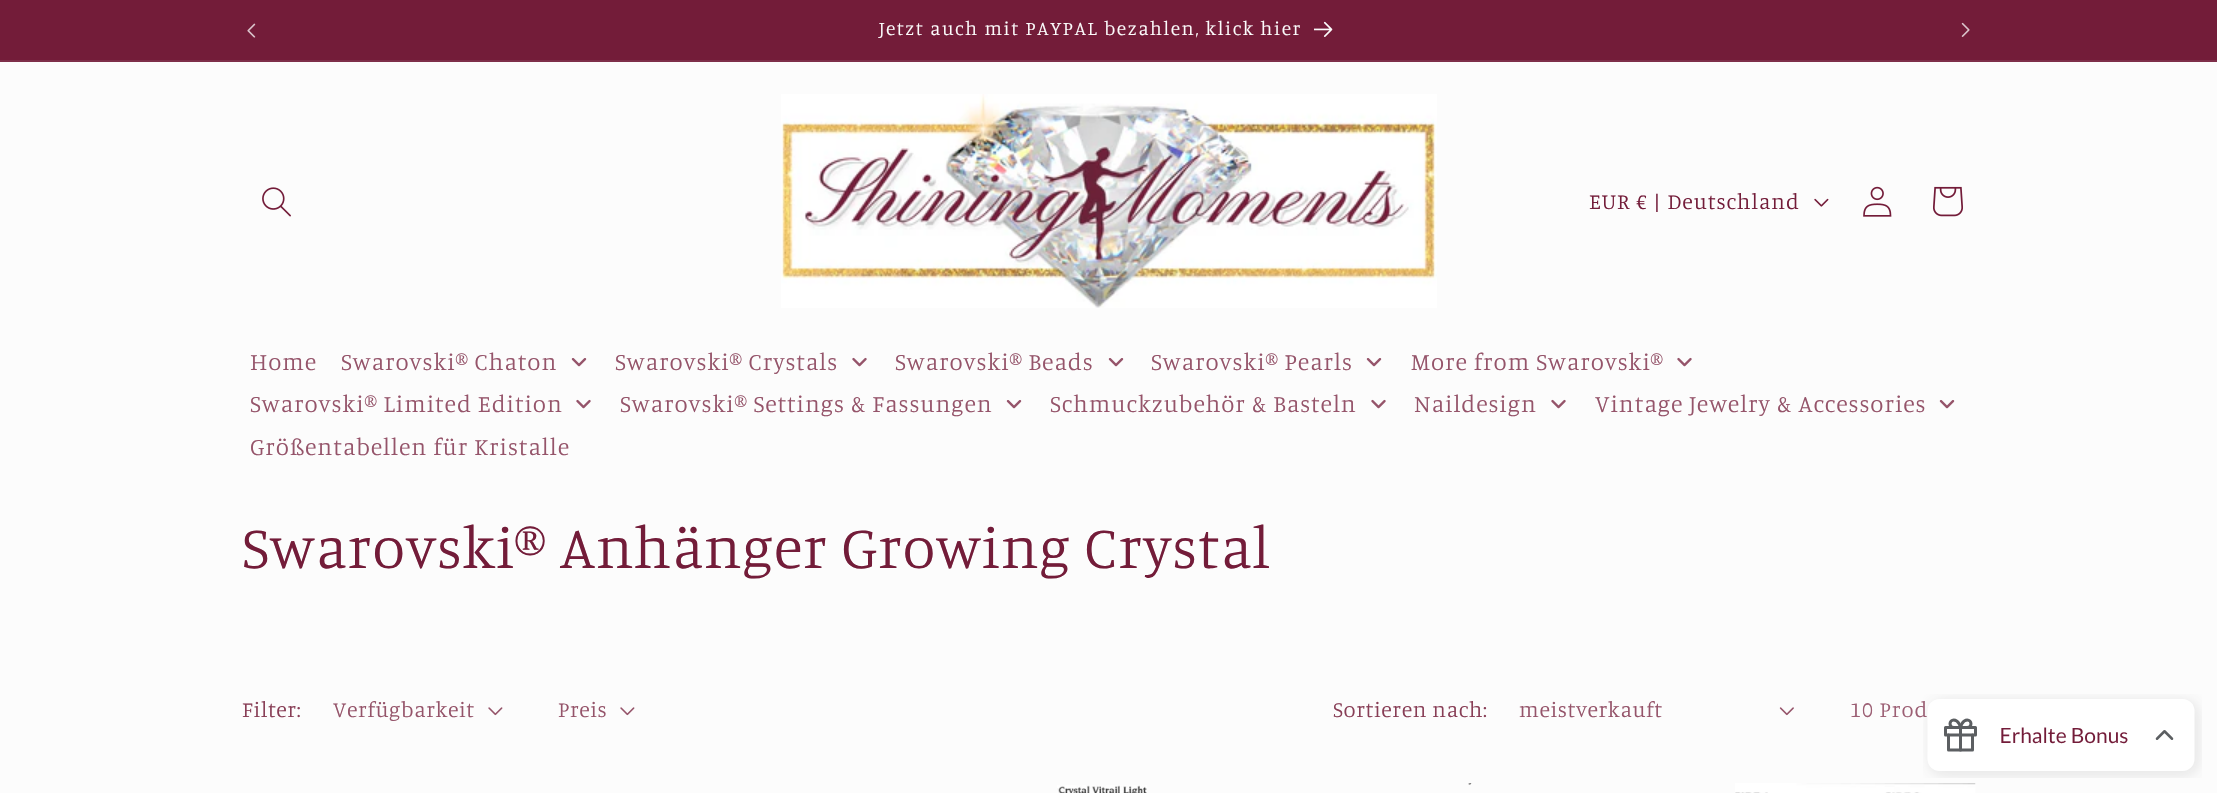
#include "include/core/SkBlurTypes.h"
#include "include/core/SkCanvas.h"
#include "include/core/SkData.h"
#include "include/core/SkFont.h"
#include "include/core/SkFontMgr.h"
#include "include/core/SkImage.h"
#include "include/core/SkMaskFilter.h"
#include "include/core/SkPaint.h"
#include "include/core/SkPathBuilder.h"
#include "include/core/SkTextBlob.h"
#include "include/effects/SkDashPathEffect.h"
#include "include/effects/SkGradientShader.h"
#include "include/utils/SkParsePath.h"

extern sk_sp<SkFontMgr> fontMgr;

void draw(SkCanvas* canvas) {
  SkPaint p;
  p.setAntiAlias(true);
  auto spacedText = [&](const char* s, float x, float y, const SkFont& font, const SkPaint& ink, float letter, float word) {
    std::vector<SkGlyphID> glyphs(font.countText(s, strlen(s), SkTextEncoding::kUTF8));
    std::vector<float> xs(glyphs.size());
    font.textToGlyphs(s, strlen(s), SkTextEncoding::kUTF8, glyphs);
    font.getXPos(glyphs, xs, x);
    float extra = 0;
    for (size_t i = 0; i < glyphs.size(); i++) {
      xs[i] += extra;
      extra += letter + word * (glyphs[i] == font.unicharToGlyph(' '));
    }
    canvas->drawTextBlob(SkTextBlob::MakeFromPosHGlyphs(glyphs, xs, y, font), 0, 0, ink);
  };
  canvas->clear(SkColorSetRGB(252, 252, 252));
  p.setColor(SkColorSetRGB(115, 28, 57));
  canvas->drawRect(SkRect::MakeLTRB(0, 0, 2217, 60), p);
  p.setColor(SkColorSetRGB(126, 46, 73));
  canvas->drawRect(SkRect::MakeLTRB(0, 60, 2217, 62), p);
  canvas->drawImageRect(SkImages::DeferredFromEncodedData(SkData::MakeFromFileName("images/1.png")), SkRect::MakeLTRB(247, 23, 256, 38), SkSamplingOptions());
  canvas->drawImageRect(SkImages::DeferredFromEncodedData(SkData::MakeFromFileName("images/2.png")), SkRect::MakeLTRB(1314, 21, 1333, 37), SkSamplingOptions());
  canvas->drawImageRect(SkImages::DeferredFromEncodedData(SkData::MakeFromFileName("images/3.png")), SkRect::MakeLTRB(1961, 22, 1970, 37), SkSamplingOptions());
  canvas->drawImageRect(SkImages::DeferredFromEncodedData(SkData::MakeFromFileName("images/4.png")), SkRect::MakeLTRB(262, 187, 291, 217), SkSamplingOptions());
  canvas->drawImageRect(SkImages::DeferredFromEncodedData(SkData::MakeFromFileName("images/5.png")), SkRect::MakeLTRB(781, 94, 1437, 308), SkSamplingOptions());
  canvas->drawImageRect(SkImages::DeferredFromEncodedData(SkData::MakeFromFileName("images/6.png")), SkRect::MakeLTRB(1814, 198, 1829, 207), SkSamplingOptions());
  canvas->drawImageRect(SkImages::DeferredFromEncodedData(SkData::MakeFromFileName("images/7.png")), SkRect::MakeLTRB(1863, 186, 1892, 217), SkSamplingOptions());
  canvas->drawImageRect(SkImages::DeferredFromEncodedData(SkData::MakeFromFileName("images/8.png")), SkRect::MakeLTRB(1933, 186, 1963, 217), SkSamplingOptions());
  canvas->drawImageRect(SkImages::DeferredFromEncodedData(SkData::MakeFromFileName("images/9.png")), SkRect::MakeLTRB(571, 358, 587, 367), SkSamplingOptions());
  canvas->drawImageRect(SkImages::DeferredFromEncodedData(SkData::MakeFromFileName("images/10.png")), SkRect::MakeLTRB(852, 357, 867, 367), SkSamplingOptions());
  canvas->drawImageRect(SkImages::DeferredFromEncodedData(SkData::MakeFromFileName("images/9.png")), SkRect::MakeLTRB(1108, 358, 1124, 367), SkSamplingOptions());
  canvas->drawImageRect(SkImages::DeferredFromEncodedData(SkData::MakeFromFileName("images/9.png")), SkRect::MakeLTRB(1366, 358, 1382, 367), SkSamplingOptions());
  canvas->drawImageRect(SkImages::DeferredFromEncodedData(SkData::MakeFromFileName("images/10.png")), SkRect::MakeLTRB(1677, 357, 1692, 367), SkSamplingOptions());
  canvas->drawImageRect(SkImages::DeferredFromEncodedData(SkData::MakeFromFileName("images/10.png")), SkRect::MakeLTRB(576, 399, 591, 409), SkSamplingOptions());
  canvas->drawImageRect(SkImages::DeferredFromEncodedData(SkData::MakeFromFileName("images/9.png")), SkRect::MakeLTRB(1006, 400, 1022, 409), SkSamplingOptions());
  canvas->drawImageRect(SkImages::DeferredFromEncodedData(SkData::MakeFromFileName("images/10.png")), SkRect::MakeLTRB(1371, 399, 1386, 409), SkSamplingOptions());
  canvas->drawImageRect(SkImages::DeferredFromEncodedData(SkData::MakeFromFileName("images/10.png")), SkRect::MakeLTRB(1551, 399, 1566, 409), SkSamplingOptions());
  canvas->drawImageRect(SkImages::DeferredFromEncodedData(SkData::MakeFromFileName("images/9.png")), SkRect::MakeLTRB(1939, 400, 1955, 409), SkSamplingOptions());
  canvas->drawImageRect(SkImages::DeferredFromEncodedData(SkData::MakeFromFileName("images/11.png")), SkRect::MakeLTRB(488, 707, 503, 716), SkSamplingOptions());
  canvas->drawImageRect(SkImages::DeferredFromEncodedData(SkData::MakeFromFileName("images/11.png")), SkRect::MakeLTRB(620, 707, 635, 716), SkSamplingOptions());
  canvas->drawImageRect(SkImages::DeferredFromEncodedData(SkData::MakeFromFileName("images/12.png")), SkRect::MakeLTRB(1779, 707, 1794, 716), SkSamplingOptions());
  canvas->drawImageRect(SkImages::DeferredFromEncodedData(SkData::MakeFromFileName("images/13.png")), SkRect::MakeLTRB(1057, 785, 1147, 793), SkSamplingOptions());
  canvas->drawImageRect(SkImages::DeferredFromEncodedData(SkData::MakeFromFileName("images/14.png")), SkRect::MakeLTRB(1468, 783, 1472, 785), SkSamplingOptions());
  canvas->drawImageRect(SkImages::DeferredFromEncodedData(SkData::MakeFromFileName("images/15.png")), SkRect::MakeLTRB(1735, 783, 1976, 793), SkSamplingOptions());
  SkFont font1(fontMgr->matchFamilyStyle("Manuale", SkFontStyle(300, SkFontStyle::kNormal_Width, SkFontStyle::kUpright_Slant)), 19.5f);
  font1.setSubpixel(true);
  p.setColor(SkColorSetRGB(252, 252, 252));
  spacedText("Jetzt auch mit PAYPAL bezahlen, klick hier", 879, 35, font1, p, 1.6f, 0);
  SkFont font2(fontMgr->matchFamilyStyle("Manuale", SkFontStyle(300, SkFontStyle::kNormal_Width, SkFontStyle::kUpright_Slant)), 22);
  font2.setSubpixel(true);
  p.setColor(SkColorSetRGB(115, 28, 57));
  spacedText("EUR € | Deutschland", 1589, 209, font2, p, 0.95f, 0);
  SkFont font3(fontMgr->matchFamilyStyle("Manuale", SkFontStyle(300, SkFontStyle::kNormal_Width, SkFontStyle::kUpright_Slant)), 24);
  font3.setSubpixel(true);
  p.setColor(SkColorSetRGB(149, 84, 106));
  spacedText("Home", 250, 370, font3, p, 0.95f, 0);
  spacedText("Swarovski® Chaton", 341, 370, font3, p, 0.95f, 0);
  spacedText("Swarovski® Crystals", 615, 370, font3, p, 0.95f, 0);
  spacedText("Swarovski® Beads", 895, 370, font3, p, 0.95f, 0);
  spacedText("Swarovski® Pearls", 1151, 370, font3, p, 0.95f, 0);
  spacedText("More from Swarovski®", 1411, 370, font3, p, 0.95f, 0);
  spacedText("Swarovski® Limited Edition", 250, 412, font3, p, 0.95f, 0);
  spacedText("Swarovski® Settings & Fassungen", 620, 412, font3, p, 0.95f, 0);
  spacedText("Schmuckzubehör & Basteln", 1050, 412, font3, p, 0.95f, 0);
  spacedText("Naildesign", 1414, 412, font3, p, 0.95f, 0);
  spacedText("Vintage Jewelry & Accessories", 1595, 412, font3, p, 0.95f, 0);
  spacedText("Größentabellen für Kristalle", 250, 455, font3, p, 0.95f, 0);
  SkFont font4(fontMgr->matchFamilyStyle("Manuale", SkFontStyle(300, SkFontStyle::kNormal_Width, SkFontStyle::kUpright_Slant)), 60);
  font4.setSubpixel(true);
  p.setColor(SkColorSetRGB(115, 28, 57));
  spacedText("Swarovski® Anhänger Growing Crystal", 242, 568, font4, p, 0.9f, 0);
  p.setColor(SkColorSetRGB(136, 62, 86));
  spacedText("Filter:", 242, 717, font2, p, 0.6f, 0);
  p.setColor(SkColorSetRGB(149, 84, 106));
  spacedText("Verfügbarkeit", 333, 717, font2, p, 0.6f, 0);
  spacedText("Preis", 558, 717, font2, p, 0.6f, 0);
  p.setColor(SkColorSetRGB(136, 62, 86));
  spacedText("Sortieren nach:", 1333, 717, font2, p, 0.6f, 0);
  p.setColor(SkColorSetRGB(149, 84, 106));
  spacedText("meistverkauft", 1519, 717, font2, p, 0.6f, 0);
  p.setColor(SkColorSetRGB(156, 95, 116));
  spacedText("10 Prod", 1850, 717, font2, p, 0.95f, 0);
  canvas->drawImageRect(SkImages::DeferredFromEncodedData(SkData::MakeFromFileName("images/16.png")), SkRect::MakeLTRB(1923, 694, 2202, 778), SkSamplingOptions());
}
